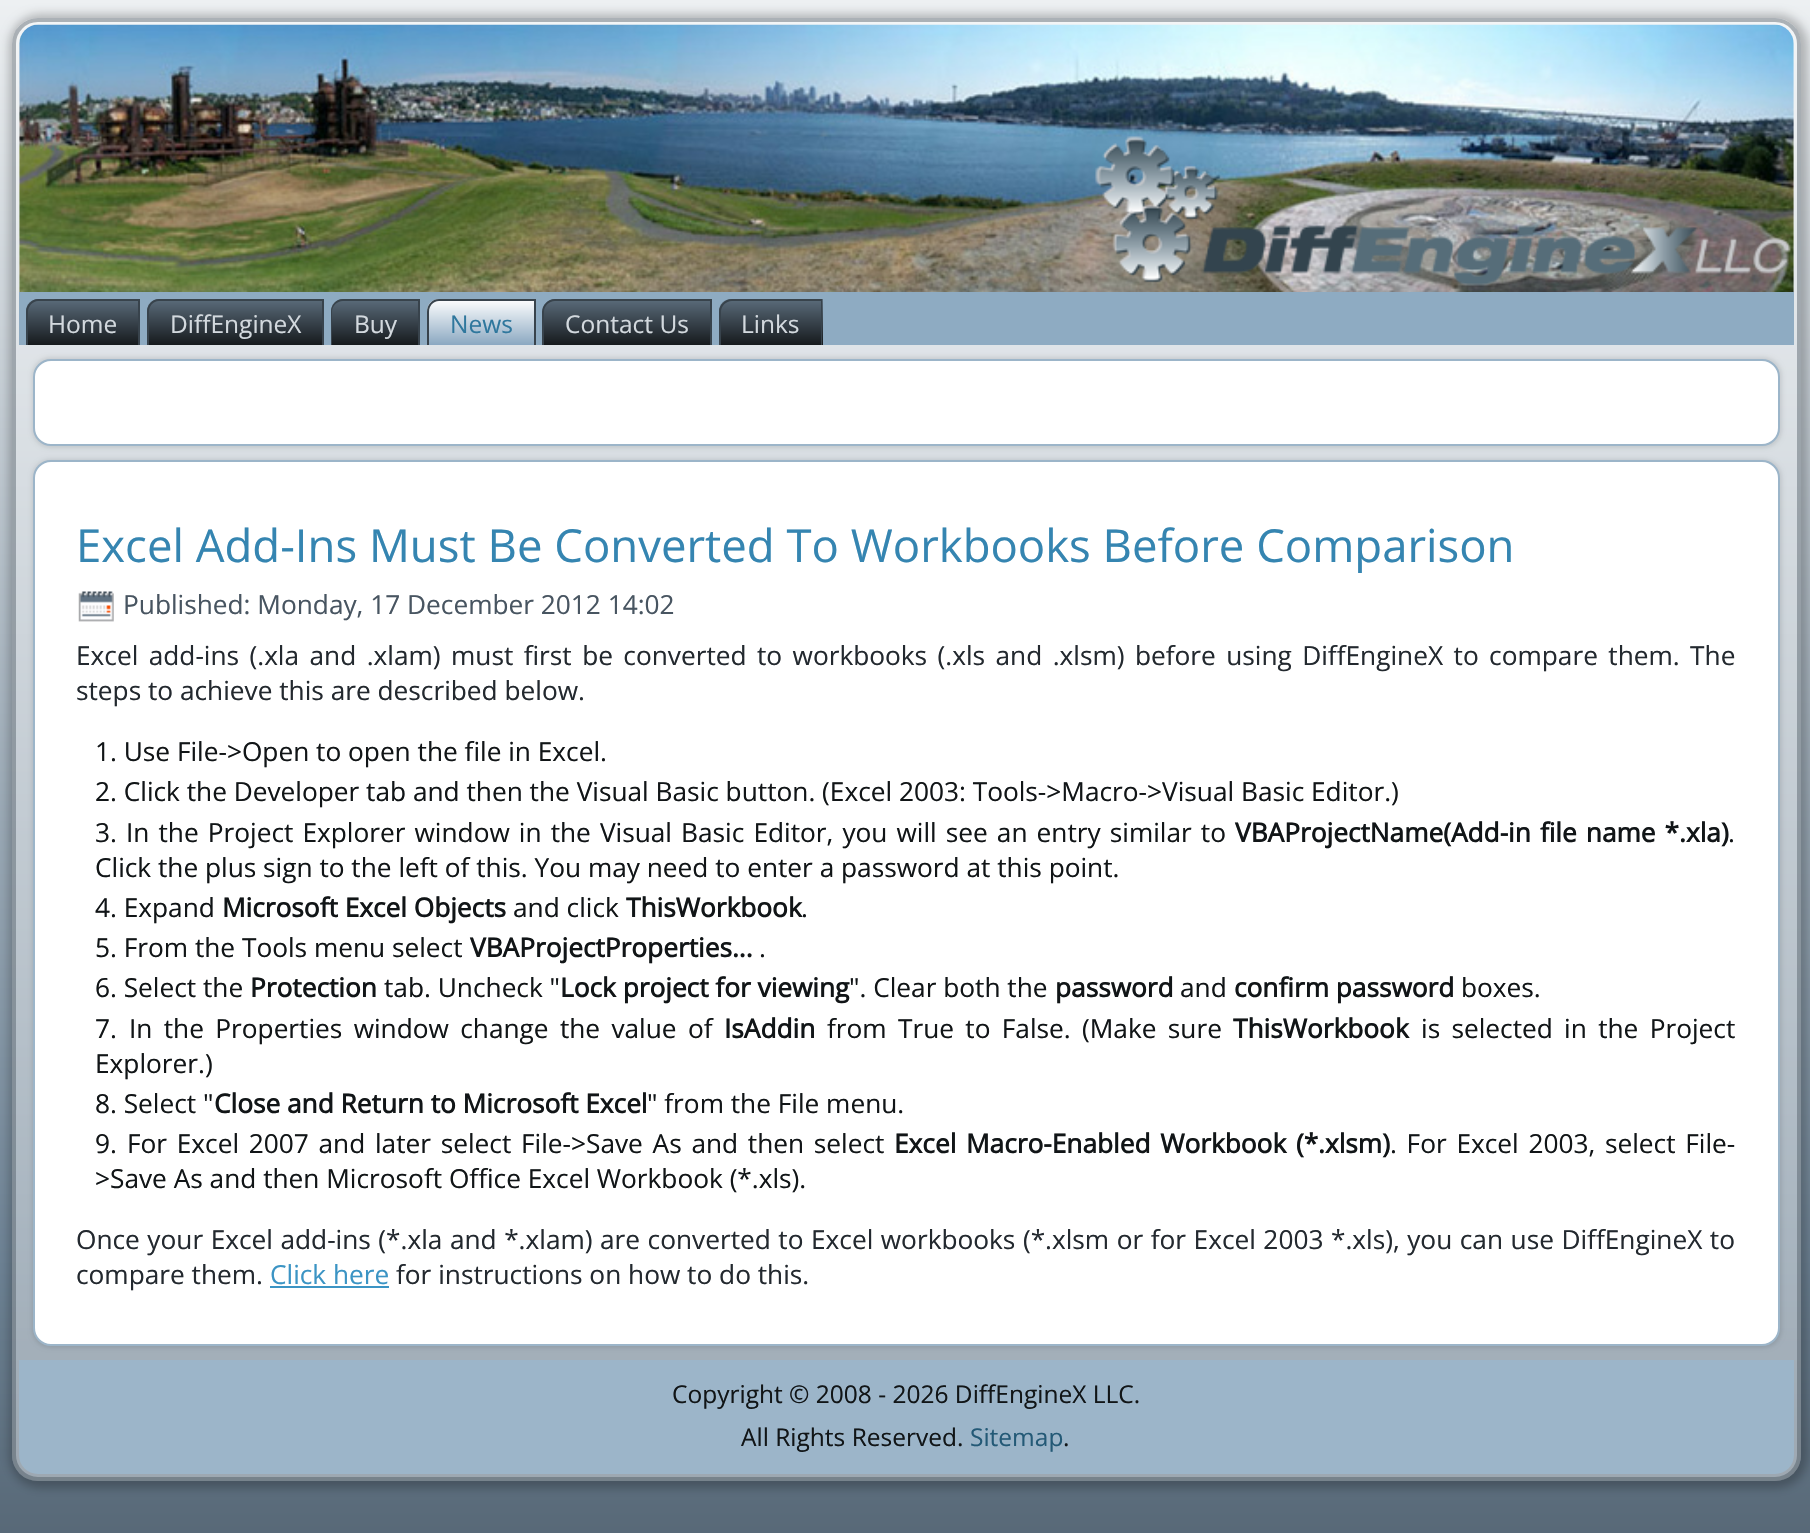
#include "include/core/SkBlurTypes.h"
#include "include/core/SkCanvas.h"
#include "include/core/SkData.h"
#include "include/core/SkFont.h"
#include "include/core/SkFontMgr.h"
#include "include/core/SkImage.h"
#include "include/core/SkMaskFilter.h"
#include "include/core/SkPaint.h"
#include "include/core/SkPathBuilder.h"
#include "include/core/SkTextBlob.h"
#include "include/effects/SkDashPathEffect.h"
#include "include/effects/SkGradientShader.h"
#include "include/utils/SkParsePath.h"

extern sk_sp<SkFontMgr> fontMgr;

void draw(SkCanvas* canvas) {
  SkPaint p;
  p.setAntiAlias(true);
  auto spacedText = [&](const char* s, float x, float y, const SkFont& font, const SkPaint& ink, float letter, float word) {
    std::vector<SkGlyphID> glyphs(font.countText(s, strlen(s), SkTextEncoding::kUTF8));
    std::vector<float> xs(glyphs.size());
    font.textToGlyphs(s, strlen(s), SkTextEncoding::kUTF8, glyphs);
    font.getXPos(glyphs, xs, x);
    float extra = 0;
    for (size_t i = 0; i < glyphs.size(); i++) {
      xs[i] += extra;
      extra += letter + word * (glyphs[i] == font.unicharToGlyph(' '));
    }
    canvas->drawTextBlob(SkTextBlob::MakeFromPosHGlyphs(glyphs, xs, y, font), 0, 0, ink);
  };
  canvas->clear(SK_ColorWHITE);
  {
    const SkColor colors[] = {SkColorSetRGB(237, 240, 242), SkColorSetRGB(108, 129, 147), SkColorSetRGB(65, 77, 88)};
    const float stops[] = {0, 0.69f, 1};
    const SkPoint ends[] = {{906, 0}, {906, 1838}};
    p.setShader(SkGradientShader::MakeLinear(ends, colors, stops, 3, SkTileMode::kClamp));
    p.setAlpha(255);
  }
  canvas->drawRect(SkRect::MakeLTRB(0, 0, 1810, 1533), p);
  canvas->save();
  canvas->clipPath(SkPathBuilder(SkPathFillType::kEvenOdd).moveTo(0, 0).lineTo(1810, 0).lineTo(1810, 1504).lineTo(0, 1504).close().moveTo(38, 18).lineTo(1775, 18).cubicTo(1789.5f, 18, 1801, 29.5f, 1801, 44).lineTo(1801, 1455).cubicTo(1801, 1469.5f, 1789.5f, 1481, 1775, 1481).lineTo(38, 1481).cubicTo(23.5f, 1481, 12, 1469.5f, 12, 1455).lineTo(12, 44).cubicTo(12, 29.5f, 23.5f, 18, 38, 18).close().detach(), true);
  p.setShader(nullptr);
  p.setColor(SkColorSetARGB(61, 0, 0, 0));
  p.setMaskFilter(SkMaskFilter::MakeBlur(kNormal_SkBlurStyle, 5));
  canvas->drawRoundRect(SkRect::MakeLTRB(9, 14, 1808, 1488), 32, 32, p);
  p.setMaskFilter(nullptr);
  canvas->restore();
  p.setColor(SkColorSetARGB(102, 255, 255, 255));
  canvas->drawRoundRect(SkRect::MakeLTRB(12, 18, 1801, 1481), 26, 26, p);
  p.setStyle(SkPaint::kStroke_Style);
  p.setStrokeWidth(4);
  p.setColor(SkColorSetARGB(102, 63, 75, 85));
  canvas->drawRoundRect(SkRect::MakeLTRB(14, 20, 1799, 1479), 24, 24, p);
  canvas->drawImageRect(SkImages::DeferredFromEncodedData(SkData::MakeFromFileName("images/1.png")), SkRect::MakeLTRB(19, 24, 1794, 292), SkSamplingOptions());
  p.setStyle(SkPaint::kFill_Style);
  p.setColor(SkColorSetRGB(142, 171, 194));
  canvas->drawRect(SkRect::MakeLTRB(19, 292, 1794, 345), p);
  {
    const SkColor colors[] = {SkColorSetRGB(91, 108, 123), SkColorSetRGB(22, 26, 29)};
    const float stops[] = {0, 1};
    const SkPoint ends[] = {{83, 299}, {83, 345}};
    p.setShader(SkGradientShader::MakeLinear(ends, colors, stops, 2, SkTileMode::kClamp));
    p.setAlpha(255);
  }
  canvas->drawPath(SkPathBuilder().moveTo(38, 299).lineTo(140, 299).lineTo(140, 345).lineTo(26, 345).lineTo(26, 311).cubicTo(26, 304.5f, 31.5f, 299, 38, 299).close().detach(), p);
  p.setShader(nullptr);
  p.setColor(SkColorSetRGB(56, 67, 76));
  canvas->drawPath(SkPathBuilder(SkPathFillType::kEvenOdd).moveTo(38, 299).lineTo(140, 299).lineTo(140, 345).lineTo(26, 345).lineTo(26, 312).cubicTo(26, 305, 32, 299, 38, 299).close().moveTo(38, 301).lineTo(138, 301).lineTo(138, 345).lineTo(28, 345).lineTo(28, 312).cubicTo(28, 306, 33, 301, 38, 301).close().detach(), p);
  {
    const SkColor colors[] = {SkColorSetRGB(91, 108, 123), SkColorSetRGB(22, 26, 29)};
    const float stops[] = {0, 1};
    const SkPoint ends[] = {{235, 299}, {235, 345}};
    p.setShader(SkGradientShader::MakeLinear(ends, colors, stops, 2, SkTileMode::kClamp));
    p.setAlpha(255);
  }
  canvas->drawPath(SkPathBuilder().moveTo(159, 299).lineTo(324, 299).lineTo(324, 345).lineTo(147, 345).lineTo(147, 311).cubicTo(147, 304.5f, 152.5f, 299, 159, 299).close().detach(), p);
  p.setShader(nullptr);
  p.setColor(SkColorSetRGB(56, 67, 76));
  canvas->drawPath(SkPathBuilder(SkPathFillType::kEvenOdd).moveTo(159, 299).lineTo(324, 299).lineTo(324, 345).lineTo(147, 345).lineTo(147, 312).cubicTo(147, 305, 152, 299, 159, 299).close().moveTo(159, 301).lineTo(322, 301).lineTo(322, 345).lineTo(149, 345).lineTo(149, 312).cubicTo(149, 306, 153, 301, 159, 301).close().detach(), p);
  {
    const SkColor colors[] = {SkColorSetRGB(91, 108, 123), SkColorSetRGB(22, 26, 29)};
    const float stops[] = {0, 1};
    const SkPoint ends[] = {{375, 299}, {375, 345}};
    p.setShader(SkGradientShader::MakeLinear(ends, colors, stops, 2, SkTileMode::kClamp));
    p.setAlpha(255);
  }
  canvas->drawPath(SkPathBuilder().moveTo(343, 299).lineTo(420, 299).lineTo(420, 345).lineTo(331, 345).lineTo(331, 311).cubicTo(331, 304.5f, 336.5f, 299, 343, 299).close().detach(), p);
  p.setShader(nullptr);
  p.setColor(SkColorSetRGB(56, 67, 76));
  canvas->drawPath(SkPathBuilder(SkPathFillType::kEvenOdd).moveTo(343, 299).lineTo(420, 299).lineTo(420, 345).lineTo(331, 345).lineTo(331, 312).cubicTo(331, 305, 336, 299, 343, 299).close().moveTo(343, 301).lineTo(418, 301).lineTo(418, 345).lineTo(332, 345).lineTo(332, 312).cubicTo(332, 306, 337, 301, 343, 301).close().detach(), p);
  {
    const SkColor colors[] = {SK_ColorWHITE, SkColorSetRGB(139, 168, 193)};
    const float stops[] = {0, 1};
    const SkPoint ends[] = {{481, 299}, {481, 345}};
    p.setShader(SkGradientShader::MakeLinear(ends, colors, stops, 2, SkTileMode::kClamp));
    p.setAlpha(255);
  }
  canvas->drawPath(SkPathBuilder().moveTo(439, 299).lineTo(536, 299).lineTo(536, 345).lineTo(427, 345).lineTo(427, 311).cubicTo(427, 304.5f, 432.5f, 299, 439, 299).close().detach(), p);
  p.setShader(nullptr);
  p.setColor(SkColorSetRGB(56, 67, 76));
  canvas->drawPath(SkPathBuilder(SkPathFillType::kEvenOdd).moveTo(439, 299).lineTo(536, 299).lineTo(536, 345).lineTo(427, 345).lineTo(427, 312).cubicTo(427, 305, 432, 299, 439, 299).close().moveTo(439, 301).lineTo(534, 301).lineTo(534, 345).lineTo(429, 345).lineTo(429, 312).cubicTo(429, 306, 433, 301, 439, 301).close().detach(), p);
  {
    const SkColor colors[] = {SkColorSetRGB(91, 108, 123), SkColorSetRGB(22, 26, 29)};
    const float stops[] = {0, 1};
    const SkPoint ends[] = {{627, 299}, {627, 345}};
    p.setShader(SkGradientShader::MakeLinear(ends, colors, stops, 2, SkTileMode::kClamp));
    p.setAlpha(255);
  }
  canvas->drawPath(SkPathBuilder().moveTo(555, 299).lineTo(712, 299).lineTo(712, 345).lineTo(543, 345).lineTo(543, 311).cubicTo(543, 304.5f, 548.5f, 299, 555, 299).close().detach(), p);
  p.setShader(nullptr);
  p.setColor(SkColorSetRGB(56, 67, 76));
  canvas->drawPath(SkPathBuilder(SkPathFillType::kEvenOdd).moveTo(555, 299).lineTo(712, 299).lineTo(712, 345).lineTo(542, 345).lineTo(542, 312).cubicTo(542, 305, 548, 299, 555, 299).close().moveTo(555, 301).lineTo(710, 301).lineTo(710, 345).lineTo(544, 345).lineTo(544, 312).cubicTo(544, 306, 549, 301, 555, 301).close().detach(), p);
  {
    const SkColor colors[] = {SkColorSetRGB(91, 108, 123), SkColorSetRGB(22, 26, 29)};
    const float stops[] = {0, 1};
    const SkPoint ends[] = {{771, 299}, {771, 345}};
    p.setShader(SkGradientShader::MakeLinear(ends, colors, stops, 2, SkTileMode::kClamp));
    p.setAlpha(255);
  }
  canvas->drawPath(SkPathBuilder().moveTo(731, 299).lineTo(823, 299).lineTo(823, 345).lineTo(719, 345).lineTo(719, 311).cubicTo(719, 304.5f, 724.5f, 299, 731, 299).close().detach(), p);
  p.setShader(nullptr);
  p.setColor(SkColorSetRGB(56, 67, 76));
  canvas->drawPath(SkPathBuilder(SkPathFillType::kEvenOdd).moveTo(732, 299).lineTo(822, 299).lineTo(822, 345).lineTo(719, 345).lineTo(719, 312).cubicTo(719, 305, 725, 299, 732, 299).close().moveTo(732, 301).lineTo(821, 301).lineTo(821, 345).lineTo(721, 345).lineTo(721, 312).cubicTo(721, 306, 726, 301, 732, 301).close().detach(), p);
  p.setColor(SkColorSetARGB(26, 0, 0, 0));
  p.setMaskFilter(SkMaskFilter::MakeBlur(kNormal_SkBlurStyle, 2));
  canvas->drawRoundRect(SkRect::MakeLTRB(32, 357, 1782, 448), 19, 19, p);
  p.setMaskFilter(nullptr);
  p.setColor(SK_ColorWHITE);
  canvas->drawRoundRect(SkRect::MakeLTRB(34, 360, 1779, 445), 17, 17, p);
  p.setStyle(SkPaint::kStroke_Style);
  p.setStrokeWidth(2);
  p.setColor(SkColorSetRGB(156, 181, 201));
  canvas->drawRoundRect(SkRect::MakeLTRB(34, 360, 1779, 445), 17, 17, p);
  p.setStyle(SkPaint::kFill_Style);
  p.setColor(SkColorSetARGB(26, 0, 0, 0));
  p.setMaskFilter(SkMaskFilter::MakeBlur(kNormal_SkBlurStyle, 2));
  canvas->drawRoundRect(SkRect::MakeLTRB(32, 459, 1782, 1348), 19, 19, p);
  p.setMaskFilter(nullptr);
  p.setColor(SK_ColorWHITE);
  canvas->drawRoundRect(SkRect::MakeLTRB(34, 461, 1779, 1345), 17, 17, p);
  p.setStyle(SkPaint::kStroke_Style);
  p.setColor(SkColorSetRGB(156, 181, 201));
  canvas->drawRoundRect(SkRect::MakeLTRB(34, 461, 1779, 1345), 17, 17, p);
  canvas->drawImageRect(SkImages::DeferredFromEncodedData(SkData::MakeFromFileName("images/2.png")), SkRect::MakeLTRB(78, 591, 114, 622), SkSamplingOptions());
  p.setStyle(SkPaint::kFill_Style);
  p.setColor(SkColorSetRGB(59, 148, 196));
  canvas->drawRect(SkRect::MakeLTRB(270, 1286, 389, 1288), p);
  p.setColor(SkColorSetRGB(156, 181, 201));
  canvas->drawPath(SkPathBuilder().moveTo(19, 1360).lineTo(1794, 1360).lineTo(1794, 1455).cubicTo(1794, 1465.5f, 1785.5f, 1474, 1775, 1474).lineTo(38, 1474).cubicTo(27.5f, 1474, 19, 1465.5f, 19, 1455).close().detach(), p);
  SkFont font1(fontMgr->matchFamilyStyle("Open Sans", SkFontStyle::Normal()), 24.5f);
  font1.setSubpixel(true);
  p.setColor(SkColorSetRGB(211, 217, 222));
  canvas->drawString("Home", 48, 333, font1, p);
  canvas->drawString("DiffEngineX", 170, 333, font1, p);
  canvas->drawString("Buy", 354, 333, font1, p);
  p.setColor(SkColorSetRGB(47, 119, 157));
  canvas->drawString("News", 450, 333, font1, p);
  p.setColor(SkColorSetRGB(211, 217, 222));
  canvas->drawString("Contact Us", 565, 333, font1, p);
  canvas->drawString("Links", 741, 333, font1, p);
  SkFont font2(fontMgr->matchFamilyStyle("Open Sans", SkFontStyle::Normal()), 45.5f);
  font2.setSubpixel(true);
  p.setColor(SkColorSetRGB(53, 133, 177));
  canvas->drawString("Excel Add-Ins Must Be Converted To Workbooks Before Comparison", 76, 562, font2, p);
  SkFont font3(fontMgr->matchFamilyStyle("Open Sans", SkFontStyle::Normal()), 26.25f);
  font3.setSubpixel(true);
  p.setColor(SkColorSetRGB(72, 85, 97));
  canvas->drawString("Published: Monday, 17 December 2012 14:02", 123, 614, font3, p);
  p.setColor(SkColorSetRGB(35, 41, 47));
  spacedText("Excel add-ins (.xla and .xlam) must first be converted to workbooks (.xls and .xlsm) before using DiffEngineX to compare them. The", 76, 665, font3, p, 0, 3.6f);
  canvas->drawString("steps to achieve this are described below.", 76, 700, font3, p);
  p.setColor(SkColorSetRGB(17, 21, 23));
  canvas->drawString("1. Use File->Open to open the file in Excel.", 95, 761, font3, p);
  canvas->drawString("2. Click the Developer tab and then the Visual Basic button. (Excel 2003: Tools->Macro->Visual Basic Editor.)", 95, 801, font3, p);
  canvas->drawString("3.", 95, 842, font3, p);
  spacedText("In the Project Explorer window in the Visual Basic Editor, you will see an entry similar to", 126, 842, font3, p, 0, 2.25f);
  SkFont font4(fontMgr->matchFamilyStyle("Open Sans", SkFontStyle::Bold()), 26.25f);
  font4.setSubpixel(true);
  spacedText("VBAProjectName(Add-in file name *.xla)", 1235, 842, font4, p, 0, 2.25f);
  canvas->drawString(".", 1728, 842, font3, p);
  canvas->drawString("Click the plus sign to the left of this. You may need to enter a password at this point.", 95, 877, font3, p);
  canvas->drawString("4. Expand", 95, 917, font3, p);
  canvas->drawString("Microsoft Excel Objects", 222, 917, font4, p);
  canvas->drawString("and click", 513, 917, font3, p);
  canvas->drawString("ThisWorkbook", 626, 917, font4, p);
  canvas->drawString(".", 801, 917, font3, p);
  canvas->drawString("5. From the Tools menu select", 95, 957, font3, p);
  canvas->drawString("VBAProjectProperties...", 470, 957, font4, p);
  canvas->drawString(".", 759, 957, font3, p);
  canvas->drawString("6. Select the", 95, 997, font3, p);
  canvas->drawString("Protection", 250, 997, font4, p);
  canvas->drawString("tab. Uncheck \"", 384, 997, font3, p);
  canvas->drawString("Lock project for viewing", 560, 997, font4, p);
  canvas->drawString("\". Clear both the", 849, 997, font3, p);
  canvas->drawString("password", 1055, 997, font4, p);
  canvas->drawString("and", 1180, 997, font3, p);
  canvas->drawString("confirm password", 1234, 997, font4, p);
  canvas->drawString("boxes.", 1461, 997, font3, p);
  canvas->drawString("7.", 95, 1038, font3, p);
  spacedText("In the Properties window change the value of", 129, 1038, font3, p, 0, 4.5f);
  canvas->drawString("IsAddin", 724, 1038, font4, p);
  spacedText("from True to False. (Make sure", 827, 1038, font3, p, 0, 4.5f);
  canvas->drawString("ThisWorkbook", 1233, 1038, font4, p);
  spacedText("is selected in the Project", 1421, 1038, font3, p, 0, 4.5f);
  canvas->drawString("Explorer.)", 95, 1073, font3, p);
  canvas->drawString("8. Select \"", 95, 1113, font3, p);
  canvas->drawString("Close and Return to Microsoft Excel", 214, 1113, font4, p);
  canvas->drawString("\" from the File menu.", 647, 1113, font3, p);
  canvas->drawString("9.", 95, 1153, font3, p);
  spacedText("For Excel 2007 and later select File->Save As and then select", 127, 1153, font3, p, 0, 2.9f);
  spacedText("Excel Macro-Enabled Workbook (*.xlsm)", 894, 1153, font4, p, 0, 2.9f);
  spacedText(". For Excel 2003, select File-", 1390, 1153, font3, p, 0, 2.9f);
  canvas->drawString(">Save As and then Microsoft Office Excel Workbook (*.xls).", 95, 1188, font3, p);
  p.setColor(SkColorSetRGB(35, 41, 47));
  spacedText("Once your Excel add-ins (*.xla and *.xlam) are converted to Excel workbooks (*.xlsm or for Excel 2003 *.xls), you can use DiffEngineX to", 76, 1249, font3, p, 0, 0.7f);
  canvas->drawString("compare them.", 76, 1284, font3, p);
  p.setColor(SkColorSetRGB(59, 148, 196));
  canvas->drawString("Click here", 270, 1284, font3, p);
  p.setColor(SkColorSetRGB(35, 41, 47));
  canvas->drawString("for instructions on how to do this.", 396, 1284, font3, p);
  p.setColor(SkColorSetRGB(17, 21, 23));
  canvas->drawString("Copyright © 2008 - 2026 DiffEngineX LLC.", 672, 1403, font1, p);
  canvas->drawString("All Rights Reserved.", 741, 1446, font1, p);
  p.setColor(SkColorSetRGB(35, 89, 118));
  canvas->drawString("Sitemap", 970, 1446, font1, p);
  p.setColor(SkColorSetRGB(17, 21, 23));
  canvas->drawString(".", 1063, 1446, font1, p);
}
